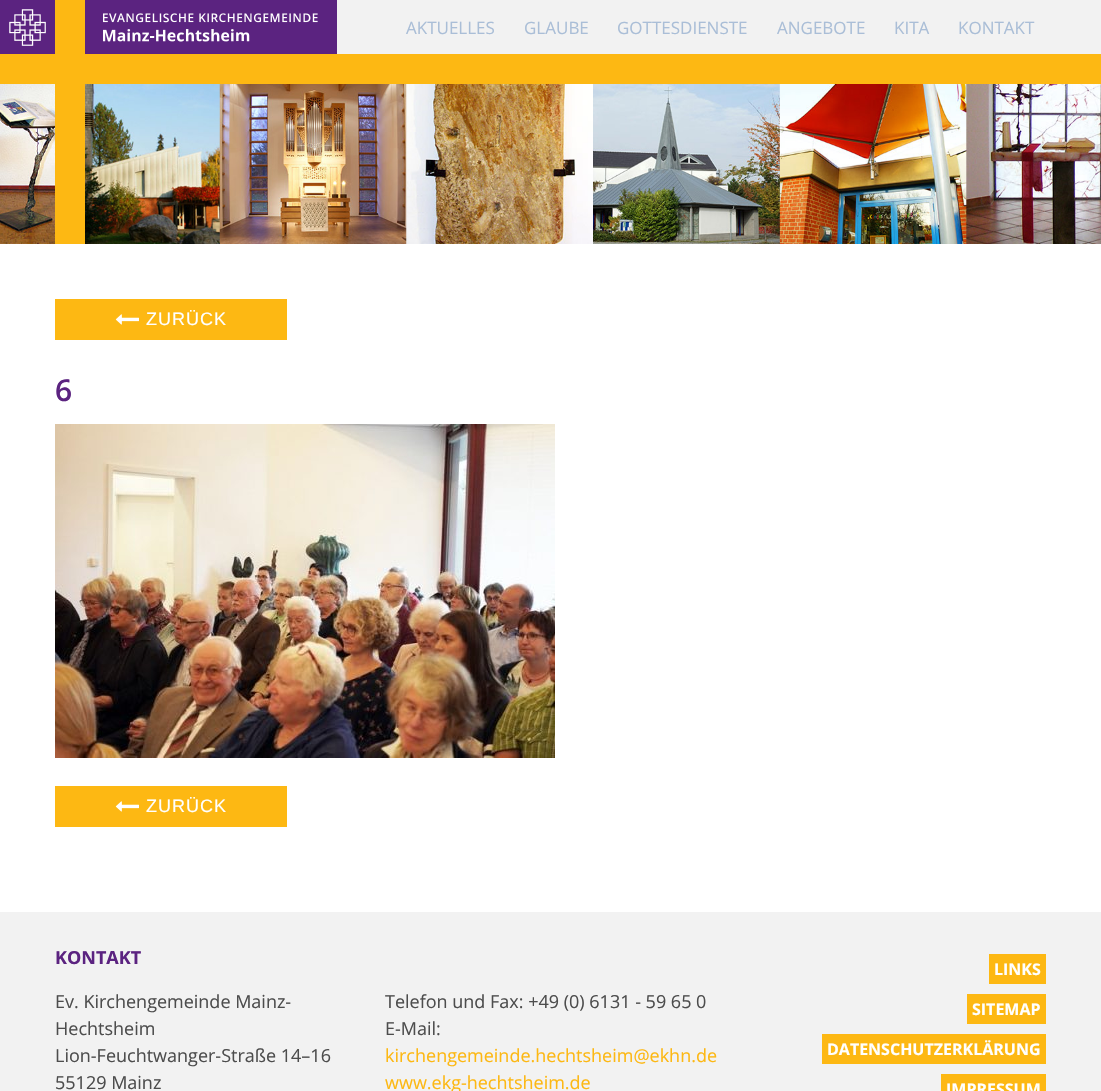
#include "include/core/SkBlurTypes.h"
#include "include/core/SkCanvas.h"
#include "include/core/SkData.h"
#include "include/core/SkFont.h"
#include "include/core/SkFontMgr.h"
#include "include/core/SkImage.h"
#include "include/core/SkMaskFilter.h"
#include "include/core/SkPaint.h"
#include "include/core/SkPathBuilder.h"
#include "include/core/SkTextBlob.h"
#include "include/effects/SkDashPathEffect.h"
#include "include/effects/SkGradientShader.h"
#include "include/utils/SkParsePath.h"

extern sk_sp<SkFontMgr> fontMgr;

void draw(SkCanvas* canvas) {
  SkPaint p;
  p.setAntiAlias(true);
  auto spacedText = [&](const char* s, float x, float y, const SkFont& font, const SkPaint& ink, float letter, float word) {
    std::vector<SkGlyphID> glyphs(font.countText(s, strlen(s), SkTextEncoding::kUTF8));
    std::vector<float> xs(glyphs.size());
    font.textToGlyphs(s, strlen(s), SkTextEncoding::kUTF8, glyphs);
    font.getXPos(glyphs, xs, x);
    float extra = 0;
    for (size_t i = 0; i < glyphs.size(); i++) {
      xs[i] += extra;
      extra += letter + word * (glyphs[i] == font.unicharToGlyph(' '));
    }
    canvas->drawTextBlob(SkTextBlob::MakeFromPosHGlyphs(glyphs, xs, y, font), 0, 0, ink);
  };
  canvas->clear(SK_ColorWHITE);
  p.setColor(SkColorSetRGB(253, 184, 19));
  canvas->drawRect(SkRect::MakeLTRB(55, 84, 85, 244), p);
  p.setColor(SkColorSetRGB(242, 242, 242));
  canvas->drawRect(SkRect::MakeLTRB(337, 0, 1101, 54), p);
  p.setColor(SkColorSetRGB(91, 35, 128));
  canvas->drawRect(SkRect::MakeLTRB(0, 0, 337, 54), p);
  p.setColor(SkColorSetRGB(253, 184, 19));
  canvas->drawRect(SkRect::MakeLTRB(55, 0, 85, 54), p);
  canvas->drawImageRect(SkImages::DeferredFromEncodedData(SkData::MakeFromFileName("images/1.png")), SkRect::MakeLTRB(9, 9, 46, 46), SkSamplingOptions());
  canvas->drawImageRect(SkImages::DeferredFromEncodedData(SkData::MakeFromFileName("images/2.png")), SkRect::MakeLTRB(103, 13, 318, 42), SkSamplingOptions());
  canvas->drawRect(SkRect::MakeLTRB(0, 54, 1101, 84), p);
  canvas->drawImageRect(SkImages::DeferredFromEncodedData(SkData::MakeFromFileName("images/3.png")), SkRect::MakeLTRB(0, 84, 55, 244), SkSamplingOptions());
  canvas->drawImageRect(SkImages::DeferredFromEncodedData(SkData::MakeFromFileName("images/4.png")), SkRect::MakeLTRB(85, 84, 1101, 244), SkSamplingOptions());
  canvas->drawRect(SkRect::MakeLTRB(55, 299, 287, 340), p);
  canvas->drawImageRect(SkImages::DeferredFromEncodedData(SkData::MakeFromFileName("images/5.png")), SkRect::MakeLTRB(115, 314, 139, 325), SkSamplingOptions());
  canvas->drawImageRect(SkImages::DeferredFromEncodedData(SkData::MakeFromFileName("images/6.png")), SkRect::MakeLTRB(55, 424, 555, 758), SkSamplingOptions());
  canvas->drawRect(SkRect::MakeLTRB(55, 786, 287, 827), p);
  canvas->drawImageRect(SkImages::DeferredFromEncodedData(SkData::MakeFromFileName("images/5.png")), SkRect::MakeLTRB(115, 801, 139, 812), SkSamplingOptions());
  p.setColor(SkColorSetRGB(242, 242, 242));
  canvas->drawRect(SkRect::MakeLTRB(0, 912, 1101, 1091), p);
  p.setColor(SkColorSetRGB(253, 184, 19));
  canvas->drawRect(SkRect::MakeLTRB(989, 954, 1046, 984), p);
  canvas->drawRect(SkRect::MakeLTRB(967, 994, 1046, 1024), p);
  canvas->drawRect(SkRect::MakeLTRB(822, 1034, 1046, 1064), p);
  canvas->drawRect(SkRect::MakeLTRB(941, 1074, 1046, 1091), p);
  SkFont font1(fontMgr->matchFamilyStyle("Open Sans", SkFontStyle::Normal()), 17);
  font1.setSubpixel(true);
  p.setColor(SkColorSetRGB(170, 190, 215));
  canvas->drawString("AKTUELLES", 406, 34, font1, p);
  canvas->drawString("GLAUBE", 524, 34, font1, p);
  canvas->drawString("GOTTESDIENSTE", 617, 34, font1, p);
  canvas->drawString("ANGEBOTE", 777, 34, font1, p);
  canvas->drawString("KITA", 894, 34, font1, p);
  canvas->drawString("KONTAKT", 958, 34, font1, p);
  SkFont font2(fontMgr->matchFamilyStyle("Liberation Sans", SkFontStyle::Normal()), 18);
  font2.setSubpixel(true);
  p.setColor(SK_ColorWHITE);
  spacedText("ZURÜCK", 146, 325, font2, p, 1, 0);
  SkFont font3(fontMgr->matchFamilyStyle("Open Sans", SkFontStyle(600, SkFontStyle::kNormal_Width, SkFontStyle::kUpright_Slant)), 30);
  font3.setSubpixel(true);
  p.setColor(SkColorSetRGB(91, 35, 128));
  canvas->drawString("6", 55, 401, font3, p);
  p.setColor(SK_ColorWHITE);
  spacedText("ZURÜCK", 146, 812, font2, p, 1, 0);
  SkFont font4(fontMgr->matchFamilyStyle("Open Sans", SkFontStyle::Bold()), 18);
  font4.setSubpixel(true);
  p.setColor(SkColorSetRGB(91, 35, 128));
  canvas->drawString("KONTAKT", 55, 964, font4, p);
  SkFont font5(fontMgr->matchFamilyStyle("Open Sans", SkFontStyle::Normal()), 18);
  font5.setSubpixel(true);
  p.setColor(SkColorSetRGB(77, 77, 77));
  canvas->drawString("Ev. Kirchengemeinde Mainz-", 55, 1008, font5, p);
  canvas->drawString("Hechtsheim", 55, 1035, font5, p);
  canvas->drawString("Lion-Feuchtwanger-Straße 14–16", 55, 1062, font5, p);
  canvas->drawString("55129 Mainz", 55, 1089, font5, p);
  canvas->drawString("Telefon und Fax: +49 (0) 6131 - 59 65 0", 385, 1008, font5, p);
  canvas->drawString("E-Mail:", 385, 1035, font5, p);
  p.setColor(SkColorSetRGB(253, 184, 19));
  canvas->drawString("kirchengemeinde.hechtsheim@ekhn.de", 385, 1062, font5, p);
  canvas->drawString("www.ekg-hechtsheim.de", 385, 1089, font5, p);
  SkFont font6(fontMgr->matchFamilyStyle("Open Sans", SkFontStyle::Bold()), 16);
  font6.setSubpixel(true);
  p.setColor(SK_ColorWHITE);
  canvas->drawString("LINKS", 994, 975, font6, p);
  canvas->drawString("SITEMAP", 972, 1015, font6, p);
  canvas->drawString("DATENSCHUTZERKLÄRUNG", 827, 1055, font6, p);
  canvas->drawString("IMPRESSUM", 946, 1095, font6, p);
}
